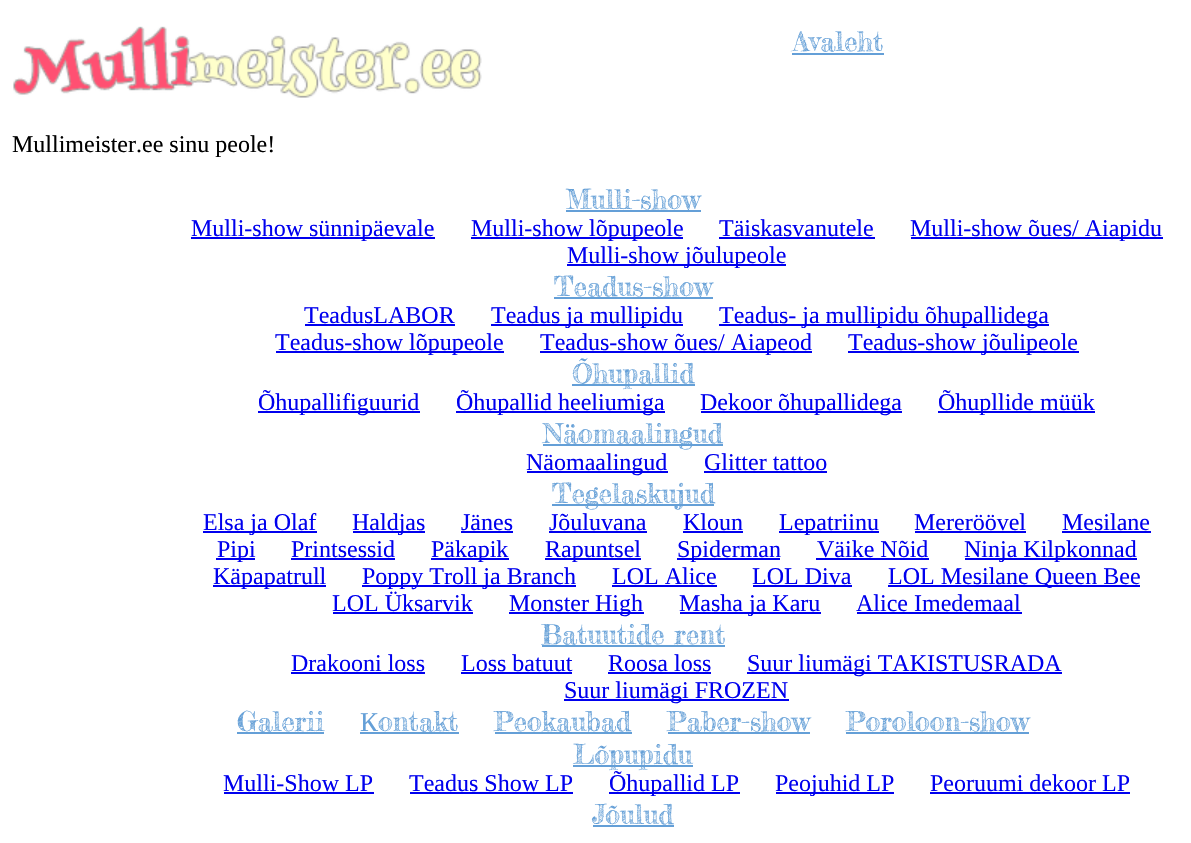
#include "include/core/SkBlurTypes.h"
#include "include/core/SkCanvas.h"
#include "include/core/SkData.h"
#include "include/core/SkFont.h"
#include "include/core/SkFontMgr.h"
#include "include/core/SkImage.h"
#include "include/core/SkMaskFilter.h"
#include "include/core/SkPaint.h"
#include "include/core/SkPathBuilder.h"
#include "include/core/SkTextBlob.h"
#include "include/effects/SkDashPathEffect.h"
#include "include/effects/SkGradientShader.h"
#include "include/utils/SkParsePath.h"

extern sk_sp<SkFontMgr> fontMgr;

void draw(SkCanvas* canvas) {
  SkPaint p;
  p.setAntiAlias(true);
  canvas->clear(SK_ColorWHITE);
  canvas->drawImageRect(SkImages::DeferredFromEncodedData(SkData::MakeFromFileName("images/1.png")), SkRect::MakeLTRB(13, 26, 482, 98), SkSamplingOptions());
  p.setColor(SkColorSetRGB(100, 159, 215));
  canvas->drawRect(SkRect::MakeLTRB(792, 53, 884, 55), p);
  canvas->drawRect(SkRect::MakeLTRB(566, 210, 701, 212), p);
  p.setColor(SkColorSetRGB(0, 0, 238));
  canvas->drawRect(SkRect::MakeLTRB(191, 237, 435, 239), p);
  canvas->drawRect(SkRect::MakeLTRB(471, 237, 683, 239), p);
  canvas->drawRect(SkRect::MakeLTRB(719, 237, 875, 239), p);
  canvas->drawRect(SkRect::MakeLTRB(911, 237, 1163, 239), p);
  canvas->drawRect(SkRect::MakeLTRB(567, 264, 786, 266), p);
  p.setColor(SkColorSetRGB(100, 159, 215));
  canvas->drawRect(SkRect::MakeLTRB(554, 297, 713, 299), p);
  p.setColor(SkColorSetRGB(0, 0, 238));
  canvas->drawRect(SkRect::MakeLTRB(305, 324, 455, 326), p);
  canvas->drawRect(SkRect::MakeLTRB(491, 324, 683, 326), p);
  canvas->drawRect(SkRect::MakeLTRB(719, 324, 1049, 326), p);
  canvas->drawRect(SkRect::MakeLTRB(276, 351, 504, 353), p);
  canvas->drawRect(SkRect::MakeLTRB(540, 351, 812, 353), p);
  canvas->drawRect(SkRect::MakeLTRB(848, 351, 1079, 353), p);
  p.setColor(SkColorSetRGB(100, 159, 215));
  canvas->drawRect(SkRect::MakeLTRB(572, 384, 695, 386), p);
  p.setColor(SkColorSetRGB(0, 0, 238));
  canvas->drawRect(SkRect::MakeLTRB(258, 411, 420, 413), p);
  canvas->drawRect(SkRect::MakeLTRB(456, 411, 665, 413), p);
  canvas->drawRect(SkRect::MakeLTRB(701, 411, 902, 413), p);
  canvas->drawRect(SkRect::MakeLTRB(938, 411, 1095, 413), p);
  p.setColor(SkColorSetRGB(100, 159, 215));
  canvas->drawRect(SkRect::MakeLTRB(543, 444, 723, 446), p);
  p.setColor(SkColorSetRGB(0, 0, 238));
  canvas->drawRect(SkRect::MakeLTRB(527, 471, 668, 473), p);
  canvas->drawRect(SkRect::MakeLTRB(704, 471, 827, 473), p);
  p.setColor(SkColorSetRGB(100, 159, 215));
  canvas->drawRect(SkRect::MakeLTRB(552, 504, 714, 506), p);
  p.setColor(SkColorSetRGB(0, 0, 238));
  canvas->drawRect(SkRect::MakeLTRB(203, 531, 317, 533), p);
  canvas->drawRect(SkRect::MakeLTRB(353, 531, 425, 533), p);
  canvas->drawRect(SkRect::MakeLTRB(461, 531, 513, 533), p);
  canvas->drawRect(SkRect::MakeLTRB(549, 531, 647, 533), p);
  canvas->drawRect(SkRect::MakeLTRB(683, 531, 743, 533), p);
  canvas->drawRect(SkRect::MakeLTRB(779, 531, 879, 533), p);
  canvas->drawRect(SkRect::MakeLTRB(915, 531, 1026, 533), p);
  canvas->drawRect(SkRect::MakeLTRB(1062, 531, 1151, 533), p);
  canvas->drawRect(SkRect::MakeLTRB(216, 558, 255, 560), p);
  canvas->drawRect(SkRect::MakeLTRB(291, 558, 395, 560), p);
  canvas->drawRect(SkRect::MakeLTRB(431, 558, 509, 560), p);
  canvas->drawRect(SkRect::MakeLTRB(545, 558, 641, 560), p);
  canvas->drawRect(SkRect::MakeLTRB(677, 558, 780, 560), p);
  canvas->drawRect(SkRect::MakeLTRB(816, 558, 929, 560), p);
  canvas->drawRect(SkRect::MakeLTRB(965, 558, 1137, 560), p);
  canvas->drawRect(SkRect::MakeLTRB(213, 585, 326, 587), p);
  canvas->drawRect(SkRect::MakeLTRB(362, 585, 576, 587), p);
  canvas->drawRect(SkRect::MakeLTRB(612, 585, 717, 587), p);
  canvas->drawRect(SkRect::MakeLTRB(753, 585, 852, 587), p);
  canvas->drawRect(SkRect::MakeLTRB(888, 585, 1140, 587), p);
  canvas->drawRect(SkRect::MakeLTRB(333, 612, 473, 614), p);
  canvas->drawRect(SkRect::MakeLTRB(509, 612, 644, 614), p);
  canvas->drawRect(SkRect::MakeLTRB(680, 612, 821, 614), p);
  canvas->drawRect(SkRect::MakeLTRB(857, 612, 1022, 614), p);
  p.setColor(SkColorSetRGB(100, 159, 215));
  canvas->drawRect(SkRect::MakeLTRB(542, 645, 725, 647), p);
  p.setColor(SkColorSetRGB(0, 0, 238));
  canvas->drawRect(SkRect::MakeLTRB(291, 672, 425, 674), p);
  canvas->drawRect(SkRect::MakeLTRB(461, 672, 572, 674), p);
  canvas->drawRect(SkRect::MakeLTRB(608, 672, 711, 674), p);
  canvas->drawRect(SkRect::MakeLTRB(747, 672, 1062, 674), p);
  canvas->drawRect(SkRect::MakeLTRB(564, 699, 789, 701), p);
  p.setColor(SkColorSetRGB(100, 159, 215));
  canvas->drawRect(SkRect::MakeLTRB(237, 732, 324, 734), p);
  canvas->drawRect(SkRect::MakeLTRB(360, 732, 459, 734), p);
  canvas->drawRect(SkRect::MakeLTRB(495, 732, 632, 734), p);
  canvas->drawRect(SkRect::MakeLTRB(668, 732, 810, 734), p);
  canvas->drawRect(SkRect::MakeLTRB(846, 732, 1029, 734), p);
  canvas->drawRect(SkRect::MakeLTRB(573, 765, 693, 767), p);
  p.setColor(SkColorSetRGB(0, 0, 238));
  canvas->drawRect(SkRect::MakeLTRB(224, 792, 374, 794), p);
  canvas->drawRect(SkRect::MakeLTRB(410, 792, 573, 794), p);
  canvas->drawRect(SkRect::MakeLTRB(609, 792, 740, 794), p);
  canvas->drawRect(SkRect::MakeLTRB(776, 792, 894, 794), p);
  canvas->drawRect(SkRect::MakeLTRB(930, 792, 1130, 794), p);
  p.setColor(SkColorSetRGB(100, 159, 215));
  canvas->drawRect(SkRect::MakeLTRB(593, 825, 674, 827), p);
  SkFont font1(fontMgr->matchFamilyStyle("Liberation Serif", SkFontStyle::Normal()), 24);
  font1.setSubpixel(true);
  p.setColor(SK_ColorBLACK);
  canvas->drawString("Mullimeister.ee sinu peole!", 12, 152, font1, p);
  SkFont font2(fontMgr->matchFamilyStyle("Fredericka the Great", SkFontStyle::Normal()), 27);
  font2.setSubpixel(true);
  p.setColor(SkColorSetRGB(100, 159, 215));
  canvas->drawString("Avaleht", 793, 51, font2, p);
  canvas->drawString("Mulli-show", 566, 209, font2, p);
  p.setColor(SkColorSetRGB(0, 0, 238));
  canvas->drawString("Mulli-show sünnipäevale", 191, 236, font1, p);
  canvas->drawString("Mulli-show lõpupeole", 471, 236, font1, p);
  canvas->drawString("Täiskasvanutele", 719, 236, font1, p);
  canvas->drawString("Mulli-show õues/ Aiapidu", 910, 236, font1, p);
  canvas->drawString("Mulli-show jõulupeole", 567, 263, font1, p);
  p.setColor(SkColorSetRGB(100, 159, 215));
  canvas->drawString("Teadus-show", 554, 296, font2, p);
  p.setColor(SkColorSetRGB(0, 0, 238));
  canvas->drawString("TeadusLABOR", 304, 323, font1, p);
  canvas->drawString("Teadus ja mullipidu", 491, 323, font1, p);
  canvas->drawString("Teadus- ja mullipidu õhupallidega", 719, 323, font1, p);
  canvas->drawString("Teadus-show lõpupeole", 275, 350, font1, p);
  canvas->drawString("Teadus-show õues/ Aiapeod", 540, 350, font1, p);
  canvas->drawString("Teadus-show jõulipeole", 848, 350, font1, p);
  p.setColor(SkColorSetRGB(100, 159, 215));
  canvas->drawString("Õhupallid", 572, 383, font2, p);
  p.setColor(SkColorSetRGB(0, 0, 238));
  canvas->drawString("Õhupallifiguurid", 258, 410, font1, p);
  canvas->drawString("Õhupallid heeliumiga", 456, 410, font1, p);
  canvas->drawString("Dekoor õhupallidega", 700, 410, font1, p);
  canvas->drawString("Õhupllide müük", 938, 410, font1, p);
  p.setColor(SkColorSetRGB(100, 159, 215));
  canvas->drawString("Näomaalingud", 543, 443, font2, p);
  p.setColor(SkColorSetRGB(0, 0, 238));
  canvas->drawString("Näomaalingud", 526, 470, font1, p);
  canvas->drawString("Glitter tattoo", 704, 470, font1, p);
  p.setColor(SkColorSetRGB(100, 159, 215));
  canvas->drawString("Tegelaskujud", 552, 503, font2, p);
  p.setColor(SkColorSetRGB(0, 0, 238));
  canvas->drawString("Elsa ja Olaf", 203, 530, font1, p);
  canvas->drawString("Haldjas", 352, 530, font1, p);
  canvas->drawString("Jänes", 461, 530, font1, p);
  canvas->drawString("Jõuluvana", 549, 530, font1, p);
  canvas->drawString("Kloun", 683, 530, font1, p);
  canvas->drawString("Lepatriinu", 779, 530, font1, p);
  canvas->drawString("Mereröövel", 914, 530, font1, p);
  canvas->drawString("Mesilane", 1062, 530, font1, p);
  canvas->drawString("Pipi", 217, 557, font1, p);
  canvas->drawString("Printsessid", 291, 557, font1, p);
  canvas->drawString("Päkapik", 431, 557, font1, p);
  canvas->drawString("Rapuntsel", 545, 557, font1, p);
  canvas->drawString("Spiderman", 677, 557, font1, p);
  canvas->drawString("Väike Nõid", 817, 557, font1, p);
  canvas->drawString("Ninja Kilpkonnad", 964, 557, font1, p);
  canvas->drawString("Käpapatrull", 213, 584, font1, p);
  canvas->drawString("Poppy Troll ja Branch", 362, 584, font1, p);
  canvas->drawString("LOL Alice", 612, 584, font1, p);
  canvas->drawString("LOL Diva", 752, 584, font1, p);
  canvas->drawString("LOL Mesilane Queen Bee", 888, 584, font1, p);
  canvas->drawString("LOL Üksarvik", 332, 611, font1, p);
  canvas->drawString("Monster High", 509, 611, font1, p);
  canvas->drawString("Masha ja Karu", 679, 611, font1, p);
  canvas->drawString("Alice Imedemaal", 856, 611, font1, p);
  p.setColor(SkColorSetRGB(100, 159, 215));
  canvas->drawString("Batuutide rent", 541, 644, font2, p);
  p.setColor(SkColorSetRGB(0, 0, 238));
  canvas->drawString("Drakooni loss", 291, 671, font1, p);
  canvas->drawString("Loss batuut", 461, 671, font1, p);
  canvas->drawString("Roosa loss", 608, 671, font1, p);
  canvas->drawString("Suur liumägi TAKISTUSRADA", 747, 671, font1, p);
  canvas->drawString("Suur liumägi FROZEN", 564, 698, font1, p);
  p.setColor(SkColorSetRGB(100, 159, 215));
  canvas->drawString("Galerii", 237, 731, font2, p);
  SkFont font3(fontMgr->matchFamilyStyle("Liberation Serif", SkFontStyle::Normal()), 27);
  font3.setSubpixel(true);
  canvas->drawString("К", 360, 731, font3, p);
  canvas->drawString("ontakt", 378, 731, font2, p);
  canvas->drawString("Peokaubad", 494, 731, font2, p);
  canvas->drawString("Paber-show", 667, 731, font2, p);
  canvas->drawString("Poroloon-show", 846, 731, font2, p);
  canvas->drawString("Lõpupidu", 573, 764, font2, p);
  p.setColor(SkColorSetRGB(0, 0, 238));
  canvas->drawString("Mulli-Show LP", 223, 791, font1, p);
  canvas->drawString("Teadus Show LP", 409, 791, font1, p);
  canvas->drawString("Õhupallid LP", 609, 791, font1, p);
  canvas->drawString("Peojuhid LP", 775, 791, font1, p);
  canvas->drawString("Peoruumi dekoor LP", 930, 791, font1, p);
  p.setColor(SkColorSetRGB(100, 159, 215));
  canvas->drawString("Jõulud", 592, 824, font2, p);
}
